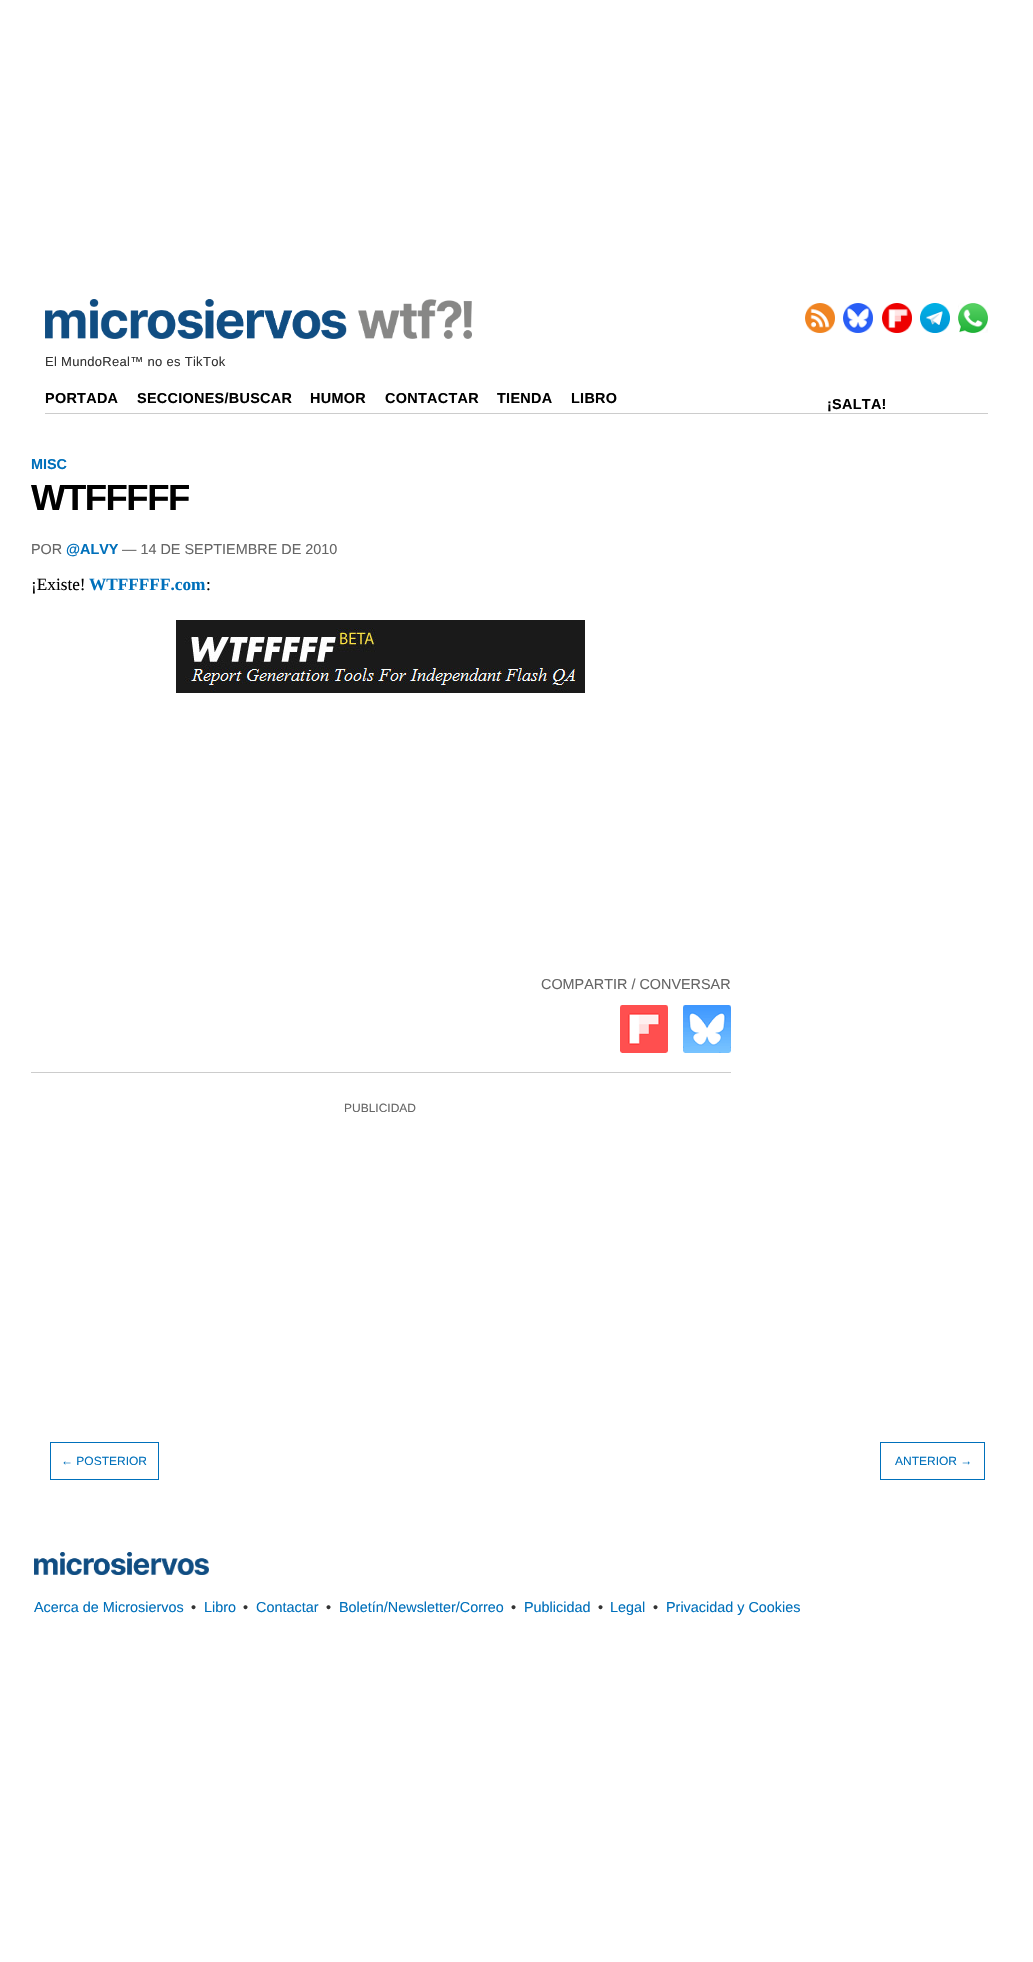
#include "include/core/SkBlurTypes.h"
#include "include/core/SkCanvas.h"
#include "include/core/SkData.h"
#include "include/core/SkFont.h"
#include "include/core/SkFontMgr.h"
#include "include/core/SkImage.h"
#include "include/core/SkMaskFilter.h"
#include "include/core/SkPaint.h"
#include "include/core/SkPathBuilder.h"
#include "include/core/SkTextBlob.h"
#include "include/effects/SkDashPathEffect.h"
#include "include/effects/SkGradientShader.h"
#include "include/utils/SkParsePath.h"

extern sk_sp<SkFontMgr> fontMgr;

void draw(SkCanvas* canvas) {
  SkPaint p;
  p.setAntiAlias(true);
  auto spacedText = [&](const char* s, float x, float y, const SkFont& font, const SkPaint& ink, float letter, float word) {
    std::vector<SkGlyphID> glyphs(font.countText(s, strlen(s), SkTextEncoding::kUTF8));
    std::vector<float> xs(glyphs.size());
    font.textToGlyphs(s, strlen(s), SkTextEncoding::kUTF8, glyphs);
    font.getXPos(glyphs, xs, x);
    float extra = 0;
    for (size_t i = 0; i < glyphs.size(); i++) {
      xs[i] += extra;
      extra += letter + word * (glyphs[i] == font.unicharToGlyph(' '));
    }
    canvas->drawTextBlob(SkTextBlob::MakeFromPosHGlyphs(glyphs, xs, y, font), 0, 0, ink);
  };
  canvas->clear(SK_ColorWHITE);
  canvas->drawImageRect(SkImages::DeferredFromEncodedData(SkData::MakeFromFileName("images/1.png")), SkRect::MakeLTRB(45, 299, 472, 339), SkSamplingOptions());
  canvas->drawImageRect(SkImages::DeferredFromEncodedData(SkData::MakeFromFileName("images/2.png")), SkRect::MakeLTRB(805, 303, 835, 333), SkSamplingOptions());
  canvas->drawImageRect(SkImages::DeferredFromEncodedData(SkData::MakeFromFileName("images/3.png")), SkRect::MakeLTRB(843, 303, 873, 333), SkSamplingOptions());
  canvas->drawImageRect(SkImages::DeferredFromEncodedData(SkData::MakeFromFileName("images/4.png")), SkRect::MakeLTRB(882, 303, 912, 333), SkSamplingOptions());
  canvas->drawImageRect(SkImages::DeferredFromEncodedData(SkData::MakeFromFileName("images/5.png")), SkRect::MakeLTRB(920, 303, 950, 333), SkSamplingOptions());
  canvas->drawImageRect(SkImages::DeferredFromEncodedData(SkData::MakeFromFileName("images/6.png")), SkRect::MakeLTRB(958, 303, 988, 333), SkSamplingOptions());
  p.setColor(SkColorSetRGB(204, 204, 204));
  canvas->drawRect(SkRect::MakeLTRB(45, 413, 988, 414), p);
  canvas->drawRect(SkRect::MakeLTRB(31, 1072, 731, 1073), p);
  canvas->drawImageRect(SkImages::DeferredFromEncodedData(SkData::MakeFromFileName("images/7.png")), SkRect::MakeLTRB(176, 620, 585, 693), SkSamplingOptions());
  canvas->drawImageRect(SkImages::DeferredFromEncodedData(SkData::MakeFromFileName("images/8.png")), SkRect::MakeLTRB(620, 1005, 668, 1053), SkSamplingOptions());
  canvas->drawImageRect(SkImages::DeferredFromEncodedData(SkData::MakeFromFileName("images/9.png")), SkRect::MakeLTRB(683, 1005, 731, 1053), SkSamplingOptions());
  p.setStyle(SkPaint::kStroke_Style);
  p.setStrokeWidth(1);
  p.setColor(SkColorSetRGB(0, 112, 187));
  canvas->drawRect(SkRect::MakeLTRB(50.5f, 1442.5f, 158.5f, 1479.5f), p);
  canvas->drawRect(SkRect::MakeLTRB(880.5f, 1442.5f, 984.5f, 1479.5f), p);
  canvas->drawImageRect(SkImages::DeferredFromEncodedData(SkData::MakeFromFileName("images/10.png")), SkRect::MakeLTRB(34, 1552, 209, 1575), SkSamplingOptions());
  SkFont font1(fontMgr->matchFamilyStyle("Liberation Sans", SkFontStyle::Normal()), 13);
  font1.setSubpixel(true);
  p.setStyle(SkPaint::kFill_Style);
  p.setColor(SkColorSetRGB(51, 51, 51));
  spacedText("El MundoReal™ no es TikTok", 45, 366, font1, p, 0.3f, 0);
  SkFont font2(fontMgr->matchFamilyStyle("Liberation Sans", SkFontStyle::Bold()), 14.4f);
  font2.setSubpixel(true);
  p.setColor(SK_ColorBLACK);
  spacedText("PORTADA", 45, 403, font2, p, 0.3f, 0);
  spacedText("SECCIONES/BUSCAR", 137, 403, font2, p, 0.3f, 0);
  spacedText("HUMOR", 310, 403, font2, p, 0.3f, 0);
  spacedText("CONTACTAR", 385, 403, font2, p, 0.3f, 0);
  spacedText("TIENDA", 497, 403, font2, p, 0.3f, 0);
  spacedText("LIBRO", 571, 403, font2, p, 0.3f, 0);
  spacedText("¡SALTA!", 827, 409, font2, p, 0.3f, 0);
  p.setColor(SkColorSetRGB(0, 112, 187));
  canvas->drawString("MISC", 31, 469, font2, p);
  SkFont font3(fontMgr->matchFamilyStyle("Liberation Sans", SkFontStyle::Bold()), 36.5f);
  font3.setSubpixel(true);
  p.setColor(SK_ColorBLACK);
  spacedText("WTFFFFF", 31, 510, font3, p, -1.5f, 0);
  SkFont font4(fontMgr->matchFamilyStyle("Liberation Sans", SkFontStyle::Normal()), 14.4f);
  font4.setSubpixel(true);
  p.setColor(SkColorSetRGB(102, 102, 102));
  canvas->drawString("POR", 31, 554, font4, p);
  p.setColor(SkColorSetRGB(0, 112, 187));
  canvas->drawString("@ALVY", 66, 554, font2, p);
  p.setColor(SkColorSetRGB(102, 102, 102));
  canvas->drawString("— 14 DE SEPTIEMBRE DE 2010", 122, 554, font4, p);
  SkFont font5(fontMgr->matchFamilyStyle("Liberation Serif", SkFontStyle::Normal()), 17.25f);
  font5.setSubpixel(true);
  p.setColor(SK_ColorBLACK);
  canvas->drawString("¡Existe!", 31, 590, font5, p);
  SkFont font6(fontMgr->matchFamilyStyle("Liberation Serif", SkFontStyle::Bold()), 17.25f);
  font6.setSubpixel(true);
  p.setColor(SkColorSetRGB(0, 112, 187));
  canvas->drawString("WTFFFFF.com", 89, 590, font6, p);
  p.setColor(SK_ColorBLACK);
  canvas->drawString(":", 206, 590, font5, p);
  p.setColor(SkColorSetRGB(102, 102, 102));
  canvas->drawString("COMPARTIR / CONVERSAR", 541, 989, font4, p);
  SkFont font7(fontMgr->matchFamilyStyle("Liberation Sans", SkFontStyle::Normal()), 12);
  font7.setSubpixel(true);
  canvas->drawString("PUBLICIDAD", 344, 1112, font7, p);
  p.setColor(SkColorSetRGB(0, 112, 187));
  canvas->drawString("← POSTERIOR", 61, 1465, font7, p);
  canvas->drawString("ANTERIOR →", 895, 1465, font7, p);
  canvas->drawString("Acerca de Microsiervos", 34, 1612, font4, p);
  p.setColor(SkColorSetRGB(51, 51, 51));
  canvas->drawString("•", 191, 1612, font4, p);
  p.setColor(SkColorSetRGB(0, 112, 187));
  canvas->drawString("Libro", 204, 1612, font4, p);
  p.setColor(SkColorSetRGB(51, 51, 51));
  canvas->drawString("•", 243, 1612, font4, p);
  p.setColor(SkColorSetRGB(0, 112, 187));
  canvas->drawString("Contactar", 256, 1612, font4, p);
  p.setColor(SkColorSetRGB(51, 51, 51));
  canvas->drawString("•", 326, 1612, font4, p);
  p.setColor(SkColorSetRGB(0, 112, 187));
  canvas->drawString("Boletín/Newsletter/Correo", 339, 1612, font4, p);
  p.setColor(SkColorSetRGB(51, 51, 51));
  canvas->drawString("•", 511, 1612, font4, p);
  p.setColor(SkColorSetRGB(0, 112, 187));
  canvas->drawString("Publicidad", 524, 1612, font4, p);
  p.setColor(SkColorSetRGB(51, 51, 51));
  canvas->drawString("•", 598, 1612, font4, p);
  p.setColor(SkColorSetRGB(0, 112, 187));
  canvas->drawString("Legal", 610, 1612, font4, p);
  p.setColor(SkColorSetRGB(51, 51, 51));
  canvas->drawString("•", 653, 1612, font4, p);
  p.setColor(SkColorSetRGB(0, 112, 187));
  canvas->drawString("Privacidad y Cookies", 666, 1612, font4, p);
}
